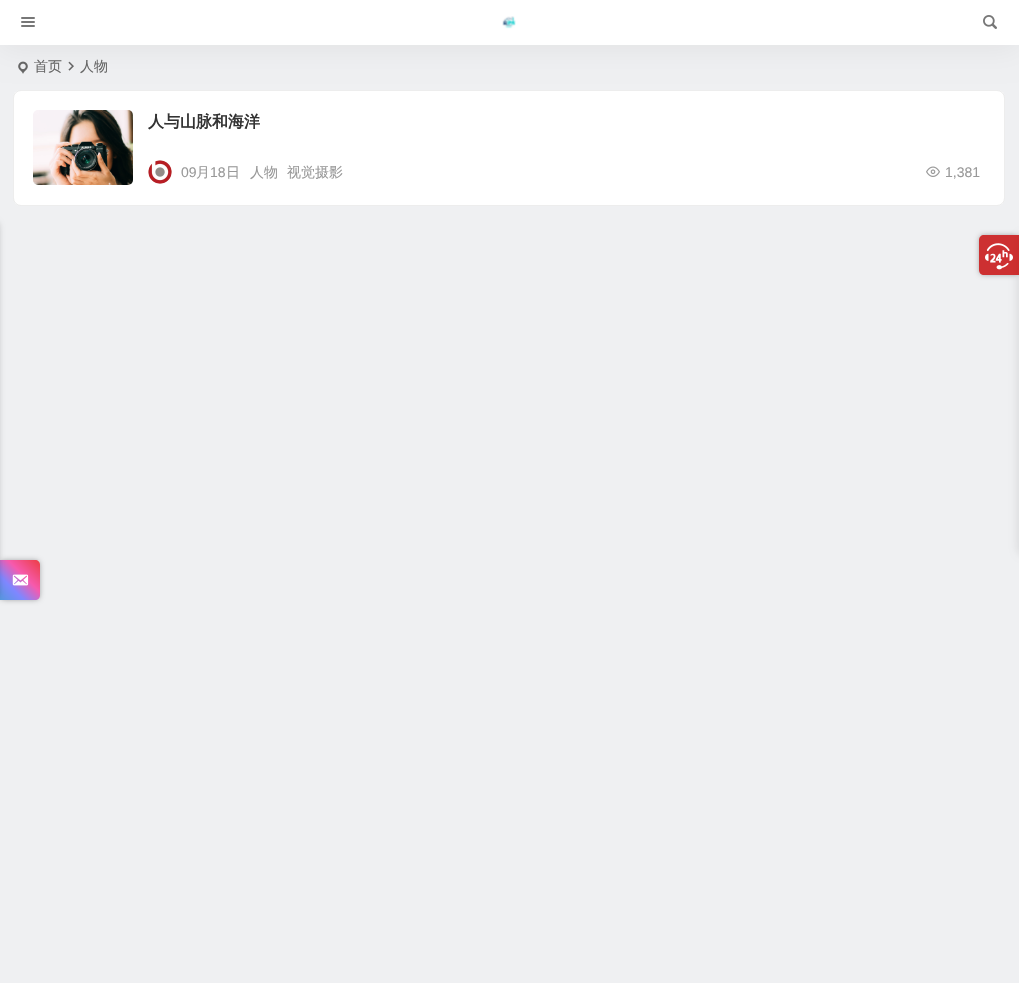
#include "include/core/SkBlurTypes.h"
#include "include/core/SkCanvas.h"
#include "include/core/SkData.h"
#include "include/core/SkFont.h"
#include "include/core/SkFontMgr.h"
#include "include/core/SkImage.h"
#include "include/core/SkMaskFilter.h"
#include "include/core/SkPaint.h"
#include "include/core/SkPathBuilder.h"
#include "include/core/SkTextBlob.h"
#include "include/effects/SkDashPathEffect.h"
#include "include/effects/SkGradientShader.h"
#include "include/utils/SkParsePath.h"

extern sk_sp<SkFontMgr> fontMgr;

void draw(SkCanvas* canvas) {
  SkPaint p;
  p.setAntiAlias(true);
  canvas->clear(SkColorSetRGB(239, 240, 242));
  canvas->drawImageRect(SkImages::DeferredFromEncodedData(SkData::MakeFromFileName("images/3.png")), SkRect::MakeLTRB(18, 61, 28, 74), SkSamplingOptions());
  canvas->drawImageRect(SkImages::DeferredFromEncodedData(SkData::MakeFromFileName("images/4.png")), SkRect::MakeLTRB(68, 61, 74, 71), SkSamplingOptions());
  p.setColor(SK_ColorWHITE);
  canvas->drawRoundRect(SkRect::MakeLTRB(13, 90, 1005, 206), 8, 8, p);
  p.setStyle(SkPaint::kStroke_Style);
  p.setStrokeWidth(1);
  p.setColor(SkColorSetARGB(18, 0, 0, 0));
  canvas->drawRoundRect(SkRect::MakeLTRB(13.5f, 90.5f, 1004.5f, 205.5f), 7.5f, 7.5f, p);
  p.setStyle(SkPaint::kFill_Style);
  p.setColor(SkColorSetARGB(15, 0, 0, 0));
  p.setMaskFilter(SkMaskFilter::MakeBlur(kNormal_SkBlurStyle, 15));
  canvas->drawRect(SkRect::MakeLTRB(0, 3, 1019, 48), p);
  p.setMaskFilter(nullptr);
  p.setColor(SK_ColorWHITE);
  canvas->drawRect(SkRect::MakeLTRB(0, 0, 1019, 45), p);
  p.setColor(SkColorSetRGB(119, 119, 119));
  canvas->drawRoundRect(SkRect::MakeLTRB(21, 21, 35, 23), 1, 1, p);
  canvas->drawRoundRect(SkRect::MakeLTRB(21, 17, 35, 19), 1, 1, p);
  canvas->drawRoundRect(SkRect::MakeLTRB(21, 25, 35, 27), 1, 1, p);
  canvas->drawImageRect(SkImages::DeferredFromEncodedData(SkData::MakeFromFileName("images/1.png")), SkRect::MakeLTRB(502, 16, 516, 29), SkSamplingOptions());
  canvas->drawImageRect(SkImages::DeferredFromEncodedData(SkData::MakeFromFileName("images/2.png")), SkRect::MakeLTRB(983, 15, 997, 29), SkSamplingOptions());
  canvas->drawImageRect(SkImages::DeferredFromEncodedData(SkData::MakeFromFileName("images/5.png")), SkRect::MakeLTRB(33, 110, 133, 185), SkSamplingOptions());
  canvas->drawImageRect(SkImages::DeferredFromEncodedData(SkData::MakeFromFileName("images/6.png")), SkRect::MakeLTRB(148, 160, 172, 184), SkSamplingOptions());
  canvas->drawImageRect(SkImages::DeferredFromEncodedData(SkData::MakeFromFileName("images/7.png")), SkRect::MakeLTRB(926, 166, 940, 177), SkSamplingOptions());
  p.setColor(SkColorSetARGB(77, 0, 0, 0));
  p.setMaskFilter(SkMaskFilter::MakeBlur(kNormal_SkBlurStyle, 2.5f));
  canvas->drawRoundRect(SkRect::MakeLTRB(0, 560, 40, 600), 5, 5, p);
  p.setMaskFilter(nullptr);
  {
    const SkColor colors[] = {SkColorSetRGB(85, 152, 222), SkColorSetRGB(127, 135, 255), SkColorSetRGB(246, 90, 173), SkColorSetRGB(236, 61, 67)};
    const float stops[] = {0, 0.3f, 0.6f, 1};
    const SkPoint ends[] = {{0, 600}, {40, 560}};
    p.setShader(SkGradientShader::MakeLinear(ends, colors, stops, 4, SkTileMode::kClamp));
    p.setAlpha(255);
  }
  canvas->drawPath(SkPathBuilder().moveTo(0, 560).lineTo(35, 560).cubicTo(38, 560, 40, 562, 40, 565).lineTo(40, 595).cubicTo(40, 598, 38, 600, 35, 600).lineTo(0, 600).close().detach(), p);
  p.setShader(nullptr);
  p.setColor(SkColorSetARGB(38, 0, 0, 0));
  p.setMaskFilter(SkMaskFilter::MakeBlur(kNormal_SkBlurStyle, 2.5f));
  canvas->drawRoundRect(SkRect::MakeLTRB(-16, 220, 0, 600), 8, 8, p);
  p.setMaskFilter(nullptr);
  canvas->drawImageRect(SkImages::DeferredFromEncodedData(SkData::MakeFromFileName("images/8.png")), SkRect::MakeLTRB(12, 574, 29, 586), SkSamplingOptions());
  p.setColor(SkColorSetARGB(18, 0, 0, 0));
  p.setMaskFilter(SkMaskFilter::MakeBlur(kNormal_SkBlurStyle, 3));
  canvas->drawRoundRect(SkRect::MakeLTRB(1016, 232, 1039, 557), 11, 11, p);
  p.setMaskFilter(nullptr);
  canvas->save();
  canvas->clipPath(SkPathBuilder(SkPathFillType::kEvenOdd).moveTo(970, 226).lineTo(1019, 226).lineTo(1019, 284).lineTo(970, 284).close().moveTo(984, 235).lineTo(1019, 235).lineTo(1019, 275).lineTo(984, 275).cubicTo(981, 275, 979, 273, 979, 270).lineTo(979, 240).cubicTo(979, 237, 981, 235, 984, 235).close().detach(), true);
  p.setColor(SkColorSetARGB(77, 0, 0, 0));
  p.setMaskFilter(SkMaskFilter::MakeBlur(kNormal_SkBlurStyle, 2.5f));
  canvas->drawRoundRect(SkRect::MakeLTRB(979, 235, 1019, 275), 5, 5, p);
  p.setMaskFilter(nullptr);
  canvas->restore();
  p.setColor(SkColorSetARGB(204, 196, 0, 0));
  canvas->drawPath(SkPathBuilder().moveTo(984, 235).lineTo(1019, 235).lineTo(1019, 275).lineTo(984, 275).cubicTo(981, 275, 979, 273, 979, 270).lineTo(979, 240).cubicTo(979, 237, 981, 235, 984, 235).close().detach(), p);
  canvas->drawImageRect(SkImages::DeferredFromEncodedData(SkData::MakeFromFileName("images/9.png")), SkRect::MakeLTRB(985, 243, 1013, 270), SkSamplingOptions());
  SkFont font1(fontMgr->matchFamilyStyle("WenQuanYi Zen Hei", SkFontStyle(500, SkFontStyle::kNormal_Width, SkFontStyle::kUpright_Slant)), 14);
  font1.setSubpixel(true);
  p.setColor(SkColorSetRGB(102, 102, 102));
  canvas->drawString("首页", 34, 71, font1, p);
  canvas->drawString("人物", 80, 71, font1, p);
  SkFont font2(fontMgr->matchFamilyStyle("WenQuanYi Zen Hei", SkFontStyle::Bold()), 16);
  font2.setSubpixel(true);
  p.setColor(SkColorSetRGB(51, 51, 51));
  canvas->drawString("人与山脉和海洋", 148, 127, font2, p);
  SkFont font3(fontMgr->matchFamilyStyle("Liberation Sans", SkFontStyle::Normal()), 14);
  font3.setSubpixel(true);
  p.setColor(SkColorSetRGB(153, 153, 153));
  canvas->drawString("09", 181, 177, font3, p);
  canvas->drawString("月", 196, 177, font1, p);
  canvas->drawString("18", 210, 177, font3, p);
  canvas->drawString("日", 226, 177, font1, p);
  canvas->drawString("人物", 250, 177, font1, p);
  canvas->drawString("视觉摄影", 287, 177, font1, p);
  canvas->drawString("1,381", 945, 177, font3, p);
}
